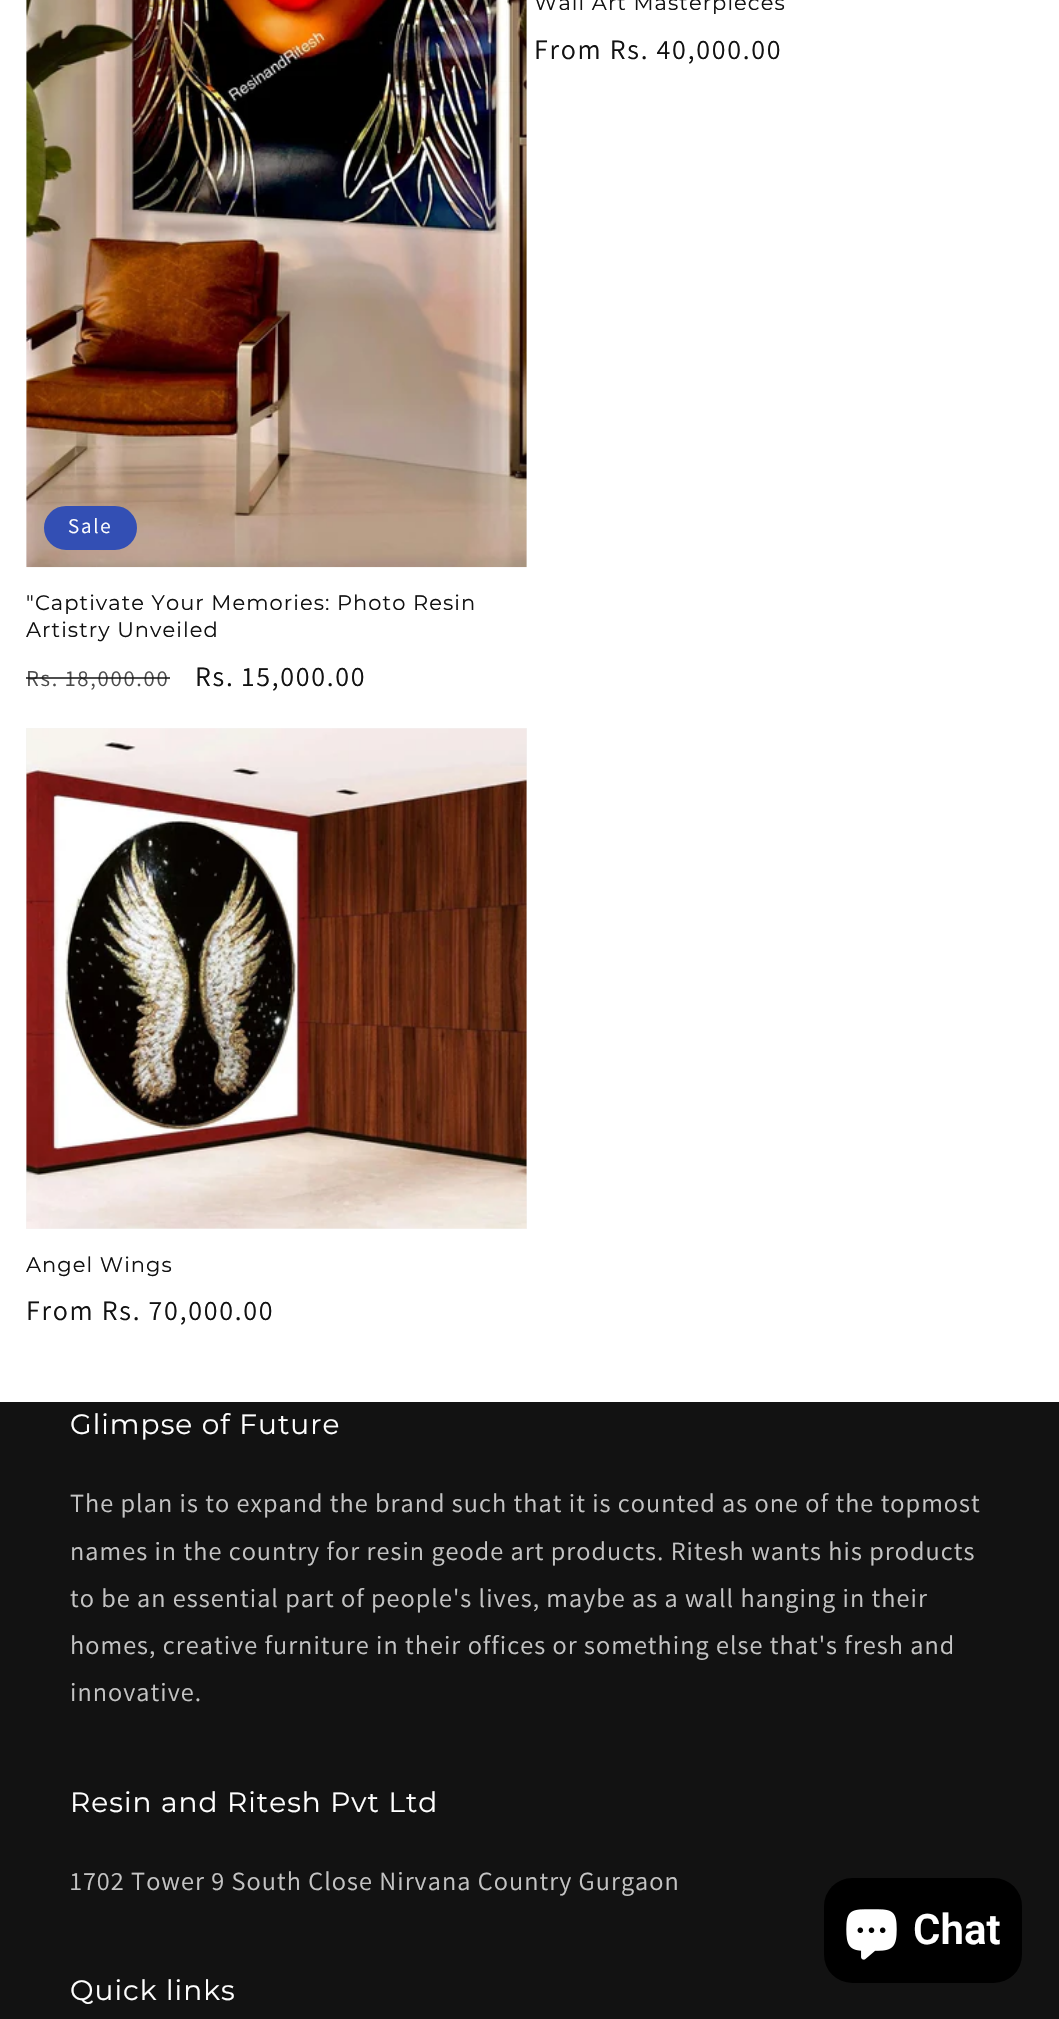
#include "include/core/SkBlurTypes.h"
#include "include/core/SkCanvas.h"
#include "include/core/SkData.h"
#include "include/core/SkFont.h"
#include "include/core/SkFontMgr.h"
#include "include/core/SkImage.h"
#include "include/core/SkMaskFilter.h"
#include "include/core/SkPaint.h"
#include "include/core/SkPathBuilder.h"
#include "include/core/SkTextBlob.h"
#include "include/effects/SkDashPathEffect.h"
#include "include/effects/SkGradientShader.h"
#include "include/utils/SkParsePath.h"

extern sk_sp<SkFontMgr> fontMgr;

void draw(SkCanvas* canvas) {
  SkPaint p;
  p.setAntiAlias(true);
  auto spacedText = [&](const char* s, float x, float y, const SkFont& font, const SkPaint& ink, float letter, float word) {
    std::vector<SkGlyphID> glyphs(font.countText(s, strlen(s), SkTextEncoding::kUTF8));
    std::vector<float> xs(glyphs.size());
    font.textToGlyphs(s, strlen(s), SkTextEncoding::kUTF8, glyphs);
    font.getXPos(glyphs, xs, x);
    float extra = 0;
    for (size_t i = 0; i < glyphs.size(); i++) {
      xs[i] += extra;
      extra += letter + word * (glyphs[i] == font.unicharToGlyph(' '));
    }
    canvas->drawTextBlob(SkTextBlob::MakeFromPosHGlyphs(glyphs, xs, y, font), 0, 0, ink);
  };
  canvas->clear(SK_ColorWHITE);
  p.setColor(SkColorSetRGB(243, 243, 243));
  canvas->drawRect(SkRect::MakeLTRB(26, 0, 527, 567), p);
  canvas->drawImageRect(SkImages::DeferredFromEncodedData(SkData::MakeFromFileName("images/1.png")), SkRect::MakeLTRB(26, 0, 527, 568), SkSamplingOptions());
  p.setColor(SkColorSetRGB(51, 79, 180));
  canvas->drawRoundRect(SkRect::MakeLTRB(45, 507, 136, 549), 21, 21, p);
  p.setStyle(SkPaint::kStroke_Style);
  p.setStrokeWidth(2);
  canvas->drawRoundRect(SkRect::MakeLTRB(45, 507, 136, 549), 21, 21, p);
  p.setStyle(SkPaint::kFill_Style);
  p.setColor(SkColorSetRGB(243, 243, 243));
  canvas->drawRect(SkRect::MakeLTRB(26, 728, 527, 1229), p);
  canvas->drawImageRect(SkImages::DeferredFromEncodedData(SkData::MakeFromFileName("images/2.png")), SkRect::MakeLTRB(26, 728, 527, 1229), SkSamplingOptions());
  p.setColor(SkColorSetRGB(18, 18, 18));
  canvas->drawRect(SkRect::MakeLTRB(0, 1402, 1059, 2019), p);
  p.setColor(SK_ColorBLACK);
  canvas->drawRoundRect(SkRect::MakeLTRB(824, 1878, 1022, 1983), 28, 28, p);
  canvas->drawImageRect(SkImages::DeferredFromEncodedData(SkData::MakeFromFileName("images/3.png")), SkRect::MakeLTRB(846, 1909, 897, 1960), SkSamplingOptions());
  SkFont font1(fontMgr->matchFamilyStyle("Montserrat", SkFontStyle::Normal()), 21);
  font1.setSubpixel(true);
  p.setColor(SkColorSetRGB(18, 18, 18));
  spacedText("Wall Art Masterpieces", 534, 10, font1, p, 1.05f, 0);
  SkFont font2(fontMgr->matchFamilyStyle("Assistant", SkFontStyle::Normal()), 28);
  font2.setSubpixel(true);
  spacedText("From Rs. 40,000.00", 534, 59, font2, p, 1.75f, 0);
  SkFont font3(fontMgr->matchFamilyStyle("Assistant", SkFontStyle::Normal()), 21);
  font3.setSubpixel(true);
  p.setColor(SK_ColorWHITE);
  spacedText("Sale", 68, 533, font3, p, 1.75f, 0);
  p.setColor(SkColorSetRGB(18, 18, 18));
  spacedText("\"Captivate Your Memories: Photo Resin", 26, 610, font1, p, 1.05f, 0);
  spacedText("Artistry Unveiled", 26, 637, font1, p, 1.05f, 0);
  SkFont font4(fontMgr->matchFamilyStyle("Assistant", SkFontStyle::Normal()), 22.75f);
  font4.setSubpixel(true);
  p.setColor(SkColorSetRGB(77, 77, 77));
  spacedText("Rs. 18,000.00", 26, 686, font4, p, 1.75f, 0);
  p.setColor(SkColorSetARGB(191, 18, 18, 18));
  canvas->drawRect(SkRect::MakeLTRB(26, 677, 170, 679), p);
  p.setColor(SkColorSetRGB(18, 18, 18));
  spacedText("Rs. 15,000.00", 195, 686, font2, p, 1.75f, 0);
  spacedText("Angel Wings", 26, 1272, font1, p, 1.05f, 0);
  spacedText("From Rs. 70,000.00", 26, 1320, font2, p, 1.75f, 0);
  SkFont font5(fontMgr->matchFamilyStyle("Montserrat", SkFontStyle::Normal()), 28);
  font5.setSubpixel(true);
  p.setColor(SK_ColorWHITE);
  spacedText("Glimpse of Future", 70, 1434, font5, p, 1.05f, 0);
  SkFont font6(fontMgr->matchFamilyStyle("Assistant", SkFontStyle::Normal()), 26.25f);
  font6.setSubpixel(true);
  p.setColor(SkColorSetRGB(196, 196, 196));
  spacedText("The plan is to expand the brand such that it is counted as one of the topmost", 70, 1512, font6, p, 1.05f, 0);
  spacedText("names in the country for resin geode art products. Ritesh wants his products", 70, 1560, font6, p, 1.05f, 0);
  spacedText("to be an essential part of people's lives, maybe as a wall hanging in their", 70, 1607, font6, p, 1.05f, 0);
  spacedText("homes, creative furniture in their offices or something else that's fresh and", 70, 1654, font6, p, 1.05f, 0);
  spacedText("innovative.", 70, 1701, font6, p, 1.05f, 0);
  p.setColor(SK_ColorWHITE);
  spacedText("Resin and Ritesh Pvt Ltd", 70, 1812, font5, p, 1.05f, 0);
  p.setColor(SkColorSetRGB(196, 196, 196));
  spacedText("1702 Tower 9 South Close Nirvana Country Gurgaon", 70, 1890, font6, p, 1.05f, 0);
  p.setColor(SK_ColorWHITE);
  spacedText("Quick links", 70, 2000, font5, p, 1.05f, 0);
  SkFont font7(fontMgr->matchFamilyStyle("Roboto", SkFontStyle(600, SkFontStyle::kNormal_Width, SkFontStyle::kUpright_Slant)), 42);
  font7.setSubpixel(true);
  canvas->drawString("Chat", 913, 1944, font7, p);
}
